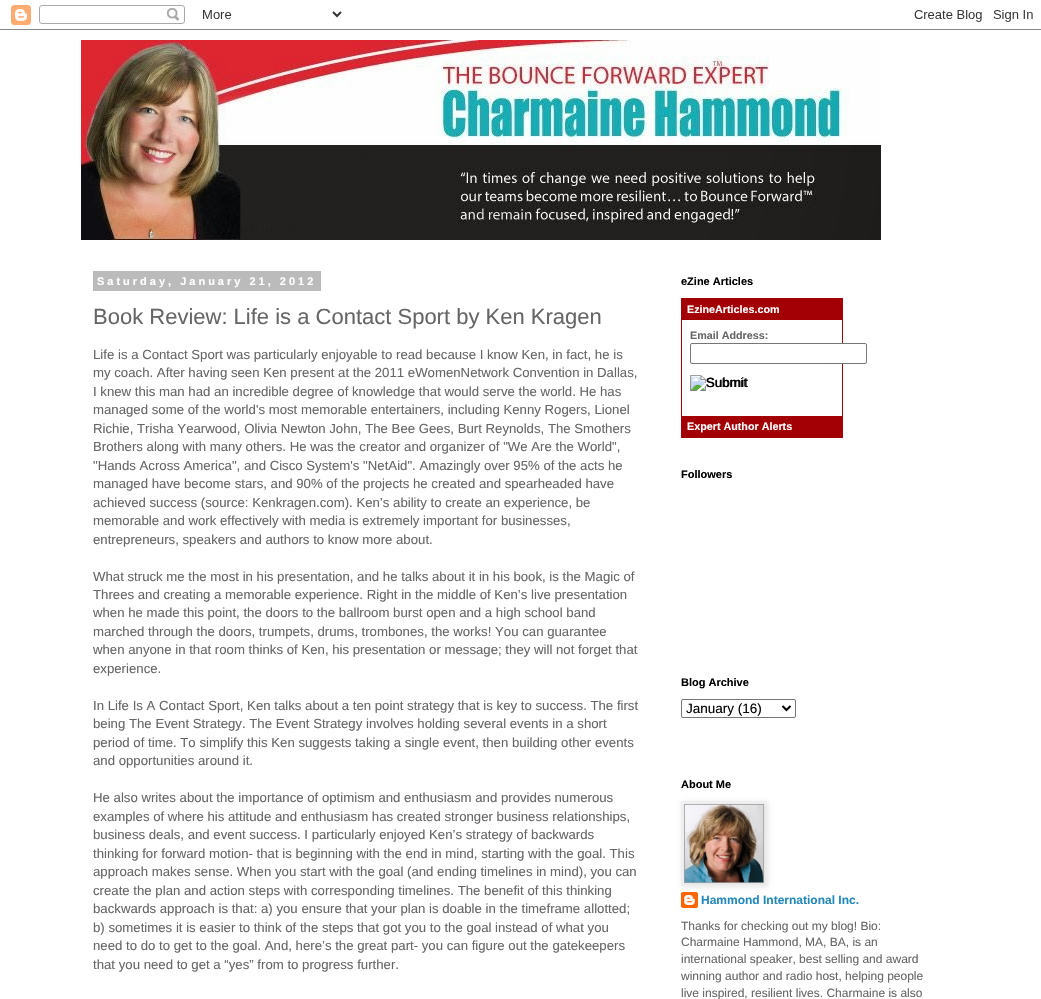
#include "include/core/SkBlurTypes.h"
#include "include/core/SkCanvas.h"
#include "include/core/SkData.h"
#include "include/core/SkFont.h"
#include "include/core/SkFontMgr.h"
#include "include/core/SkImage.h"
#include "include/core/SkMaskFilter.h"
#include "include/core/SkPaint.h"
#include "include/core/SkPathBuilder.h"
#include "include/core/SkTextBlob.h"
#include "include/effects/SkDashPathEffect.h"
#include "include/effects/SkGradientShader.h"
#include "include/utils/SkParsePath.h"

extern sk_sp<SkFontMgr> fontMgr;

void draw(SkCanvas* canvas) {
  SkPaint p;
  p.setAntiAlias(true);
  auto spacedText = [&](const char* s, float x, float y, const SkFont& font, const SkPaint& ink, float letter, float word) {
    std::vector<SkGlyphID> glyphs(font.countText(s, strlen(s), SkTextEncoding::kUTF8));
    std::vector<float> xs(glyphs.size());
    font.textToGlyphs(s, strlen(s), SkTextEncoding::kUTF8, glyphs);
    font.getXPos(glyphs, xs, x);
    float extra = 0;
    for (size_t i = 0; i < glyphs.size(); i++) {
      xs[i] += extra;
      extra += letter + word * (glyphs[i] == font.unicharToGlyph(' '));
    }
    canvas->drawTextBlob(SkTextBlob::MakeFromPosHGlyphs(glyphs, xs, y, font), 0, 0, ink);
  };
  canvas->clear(SK_ColorWHITE);
  canvas->drawImageRect(SkImages::DeferredFromEncodedData(SkData::MakeFromFileName("images/1.png")), SkRect::MakeLTRB(0, 5, 1041, 30), SkSamplingOptions());
  canvas->drawImageRect(SkImages::DeferredFromEncodedData(SkData::MakeFromFileName("images/2.png")), SkRect::MakeLTRB(81, 40, 881, 240), SkSamplingOptions());
  p.setColor(SkColorSetRGB(187, 187, 187));
  canvas->drawRect(SkRect::MakeLTRB(93, 271, 321, 291), p);
  p.setStyle(SkPaint::kStroke_Style);
  p.setStrokeWidth(1);
  p.setColor(SkColorSetRGB(163, 0, 6));
  canvas->drawRect(SkRect::MakeLTRB(681.5f, 298.5f, 842.5f, 437.5f), p);
  p.setStyle(SkPaint::kFill_Style);
  canvas->drawRect(SkRect::MakeLTRB(682, 299, 842, 320), p);
  p.setColor(SK_ColorWHITE);
  canvas->drawRoundRect(SkRect::MakeLTRB(690.5f, 343.5f, 866.5f, 363.5f), 1.5f, 1.5f, p);
  p.setStyle(SkPaint::kStroke_Style);
  p.setColor(SkColorSetRGB(118, 118, 118));
  canvas->drawRoundRect(SkRect::MakeLTRB(690.5f, 343.5f, 866.5f, 363.5f), 1.5f, 1.5f, p);
  canvas->drawImageRect(SkImages::DeferredFromEncodedData(SkData::MakeFromFileName("images/3.png")), SkRect::MakeLTRB(690, 375, 747, 391), SkSamplingOptions());
  p.setStyle(SkPaint::kFill_Style);
  p.setColor(SkColorSetRGB(163, 0, 6));
  canvas->drawRect(SkRect::MakeLTRB(682, 416, 842, 437), p);
  p.setStyle(SkPaint::kStroke_Style);
  p.setColor(SkColorSetRGB(118, 118, 118));
  canvas->drawRoundRect(SkRect::MakeLTRB(681.5f, 699.5f, 795.5f, 717.5f), 1.5f, 1.5f, p);
  p.setStrokeWidth(2);
  p.setColor(SK_ColorBLACK);
  canvas->drawPath(SkPathBuilder().moveTo(782.5f, 706).lineTo(786.5f, 710).lineTo(790.5f, 706).detach(), p);
  canvas->drawImageRect(SkImages::DeferredFromEncodedData(SkData::MakeFromFileName("images/5.png")), SkRect::MakeLTRB(681, 892, 698, 908), SkSamplingOptions());
  p.setStyle(SkPaint::kFill_Style);
  p.setColor(SkColorSetARGB(26, 0, 0, 0));
  p.setMaskFilter(SkMaskFilter::MakeBlur(kNormal_SkBlurStyle, 2.5f));
  canvas->drawRect(SkRect::MakeLTRB(682, 802, 768, 887), p);
  p.setMaskFilter(nullptr);
  p.setStyle(SkPaint::kStroke_Style);
  p.setStrokeWidth(1);
  p.setColor(SkColorSetRGB(238, 238, 238));
  canvas->drawRect(SkRect::MakeLTRB(681.5f, 801.5f, 766.5f, 885.5f), p);
  canvas->drawImageRect(SkImages::DeferredFromEncodedData(SkData::MakeFromFileName("images/4.png")), SkRect::MakeLTRB(684, 804, 764, 883), SkSamplingOptions());
  SkFont font1(fontMgr->matchFamilyStyle("Liberation Sans", SkFontStyle::Bold()), 11);
  font1.setSubpixel(true);
  p.setStyle(SkPaint::kFill_Style);
  p.setColor(SK_ColorWHITE);
  spacedText("Saturday, January 21, 2012", 97, 285, font1, p, 3, 0);
  SkFont font2(fontMgr->matchFamilyStyle("Liberation Sans", SkFontStyle::Normal()), 22);
  font2.setSubpixel(true);
  p.setColor(SkColorSetRGB(102, 102, 102));
  canvas->drawString("Book Review: Life is a Contact Sport by Ken Kragen", 93, 324, font2, p);
  SkFont font3(fontMgr->matchFamilyStyle("Liberation Sans", SkFontStyle::Normal()), 13.2f);
  font3.setSubpixel(true);
  canvas->drawString("Life is a Contact Sport was particularly enjoyable to read because I know Ken, in fact, he is", 93, 359, font3, p);
  canvas->drawString("my coach. After having seen Ken present at the 2011 eWomenNetwork Convention in Dallas,", 93, 377, font3, p);
  canvas->drawString("I knew this man had an incredible degree of knowledge that would serve the world. He has", 93, 396, font3, p);
  canvas->drawString("managed some of the world's most memorable entertainers, including Kenny Rogers, Lionel", 93, 414, font3, p);
  canvas->drawString("Richie, Trisha Yearwood, Olivia Newton John, The Bee Gees, Burt Reynolds, The Smothers", 93, 433, font3, p);
  canvas->drawString("Brothers along with many others. He was the creator and organizer of \"We Are the World\",", 93, 451, font3, p);
  canvas->drawString("\"Hands Across America\", and Cisco System's \"NetAid\". Amazingly over 95% of the acts he", 93, 470, font3, p);
  canvas->drawString("managed have become stars, and 90% of the projects he created and spearheaded have", 93, 488, font3, p);
  canvas->drawString("achieved success (source: Kenkragen.com). Ken’s ability to create an experience, be", 93, 507, font3, p);
  canvas->drawString("memorable and work effectively with media is extremely important for businesses,", 93, 525, font3, p);
  canvas->drawString("entrepreneurs, speakers and authors to know more about.", 93, 544, font3, p);
  canvas->drawString("What struck me the most in his presentation, and he talks about it in his book, is the Magic of", 93, 581, font3, p);
  canvas->drawString("Threes and creating a memorable experience. Right in the middle of Ken’s live presentation", 93, 599, font3, p);
  canvas->drawString("when he made this point, the doors to the ballroom burst open and a high school band", 93, 617, font3, p);
  canvas->drawString("marched through the doors, trumpets, drums, trombones, the works! You can guarantee", 93, 636, font3, p);
  canvas->drawString("when anyone in that room thinks of Ken, his presentation or message; they will not forget that", 93, 654, font3, p);
  canvas->drawString("experience.", 93, 673, font3, p);
  canvas->drawString("In Life Is A Contact Sport, Ken talks about a ten point strategy that is key to success. The first", 93, 710, font3, p);
  canvas->drawString("being The Event Strategy. The Event Strategy involves holding several events in a short", 93, 728, font3, p);
  canvas->drawString("period of time. To simplify this Ken suggests taking a single event, then building other events", 93, 747, font3, p);
  canvas->drawString("and opportunities around it.", 93, 765, font3, p);
  canvas->drawString("He also writes about the importance of optimism and enthusiasm and provides numerous", 93, 802, font3, p);
  canvas->drawString("examples of where his attitude and enthusiasm has created stronger business relationships,", 93, 821, font3, p);
  canvas->drawString("business deals, and event success. I particularly enjoyed Ken’s strategy of backwards", 93, 839, font3, p);
  canvas->drawString("thinking for forward motion- that is beginning with the end in mind, starting with the goal. This", 93, 858, font3, p);
  canvas->drawString("approach makes sense. When you start with the goal (and ending timelines in mind), you can", 93, 876, font3, p);
  canvas->drawString("create the plan and action steps with corresponding timelines. The benefit of this thinking", 93, 895, font3, p);
  canvas->drawString("backwards approach is that: a) you ensure that your plan is doable in the timeframe allotted;", 93, 913, font3, p);
  canvas->drawString("b) sometimes it is easier to think of the steps that got you to the goal instead of what you", 93, 932, font3, p);
  canvas->drawString("need to do to get to the goal. And, here’s the great part- you can figure out the gatekeepers", 93, 950, font3, p);
  canvas->drawString("that you need to get a “yes” from to progress further.", 93, 969, font3, p);
  p.setColor(SK_ColorBLACK);
  canvas->drawString("eZine Articles", 681, 285, font1, p);
  SkFont font4(fontMgr->matchFamilyStyle("Liberation Sans", SkFontStyle::Bold()), 10.75f);
  font4.setSubpixel(true);
  p.setColor(SK_ColorWHITE);
  canvas->drawString("EzineArticles.com", 687, 313, font4, p);
  p.setColor(SkColorSetRGB(102, 102, 102));
  canvas->drawString("Email Address:", 690, 339, font4, p);
  SkFont font5(fontMgr->matchFamilyStyle("Liberation Sans", SkFontStyle::Normal()), 13.5f);
  font5.setSubpixel(true);
  p.setColor(SK_ColorBLACK);
  canvas->drawString("Submit", 706, 387, font5, p);
  p.setColor(SK_ColorWHITE);
  canvas->drawString("Expert Author Alerts", 687, 430, font4, p);
  p.setColor(SK_ColorBLACK);
  canvas->drawString("Followers", 681, 478, font1, p);
  canvas->drawString("Blog Archive", 681, 686, font1, p);
  canvas->drawString("January (16)", 686, 713, font5, p);
  canvas->drawString("About Me", 681, 788, font1, p);
  SkFont font6(fontMgr->matchFamilyStyle("Liberation Sans", SkFontStyle::Bold()), 12);
  font6.setSubpixel(true);
  p.setColor(SkColorSetRGB(34, 136, 187));
  canvas->drawString("Hammond International Inc.", 701, 904, font6, p);
  SkFont font7(fontMgr->matchFamilyStyle("Liberation Sans", SkFontStyle::Normal()), 12);
  font7.setSubpixel(true);
  p.setColor(SkColorSetRGB(102, 102, 102));
  canvas->drawString("Thanks for checking out my blog! Bio:", 681, 930, font7, p);
  canvas->drawString("Charmaine Hammond, MA, BA, is an", 681, 946, font7, p);
  canvas->drawString("international speaker, best selling and award", 681, 963, font7, p);
  canvas->drawString("winning author and radio host, helping people", 681, 980, font7, p);
  canvas->drawString("live inspired, resilient lives. Charmaine is also", 681, 997, font7, p);
}
